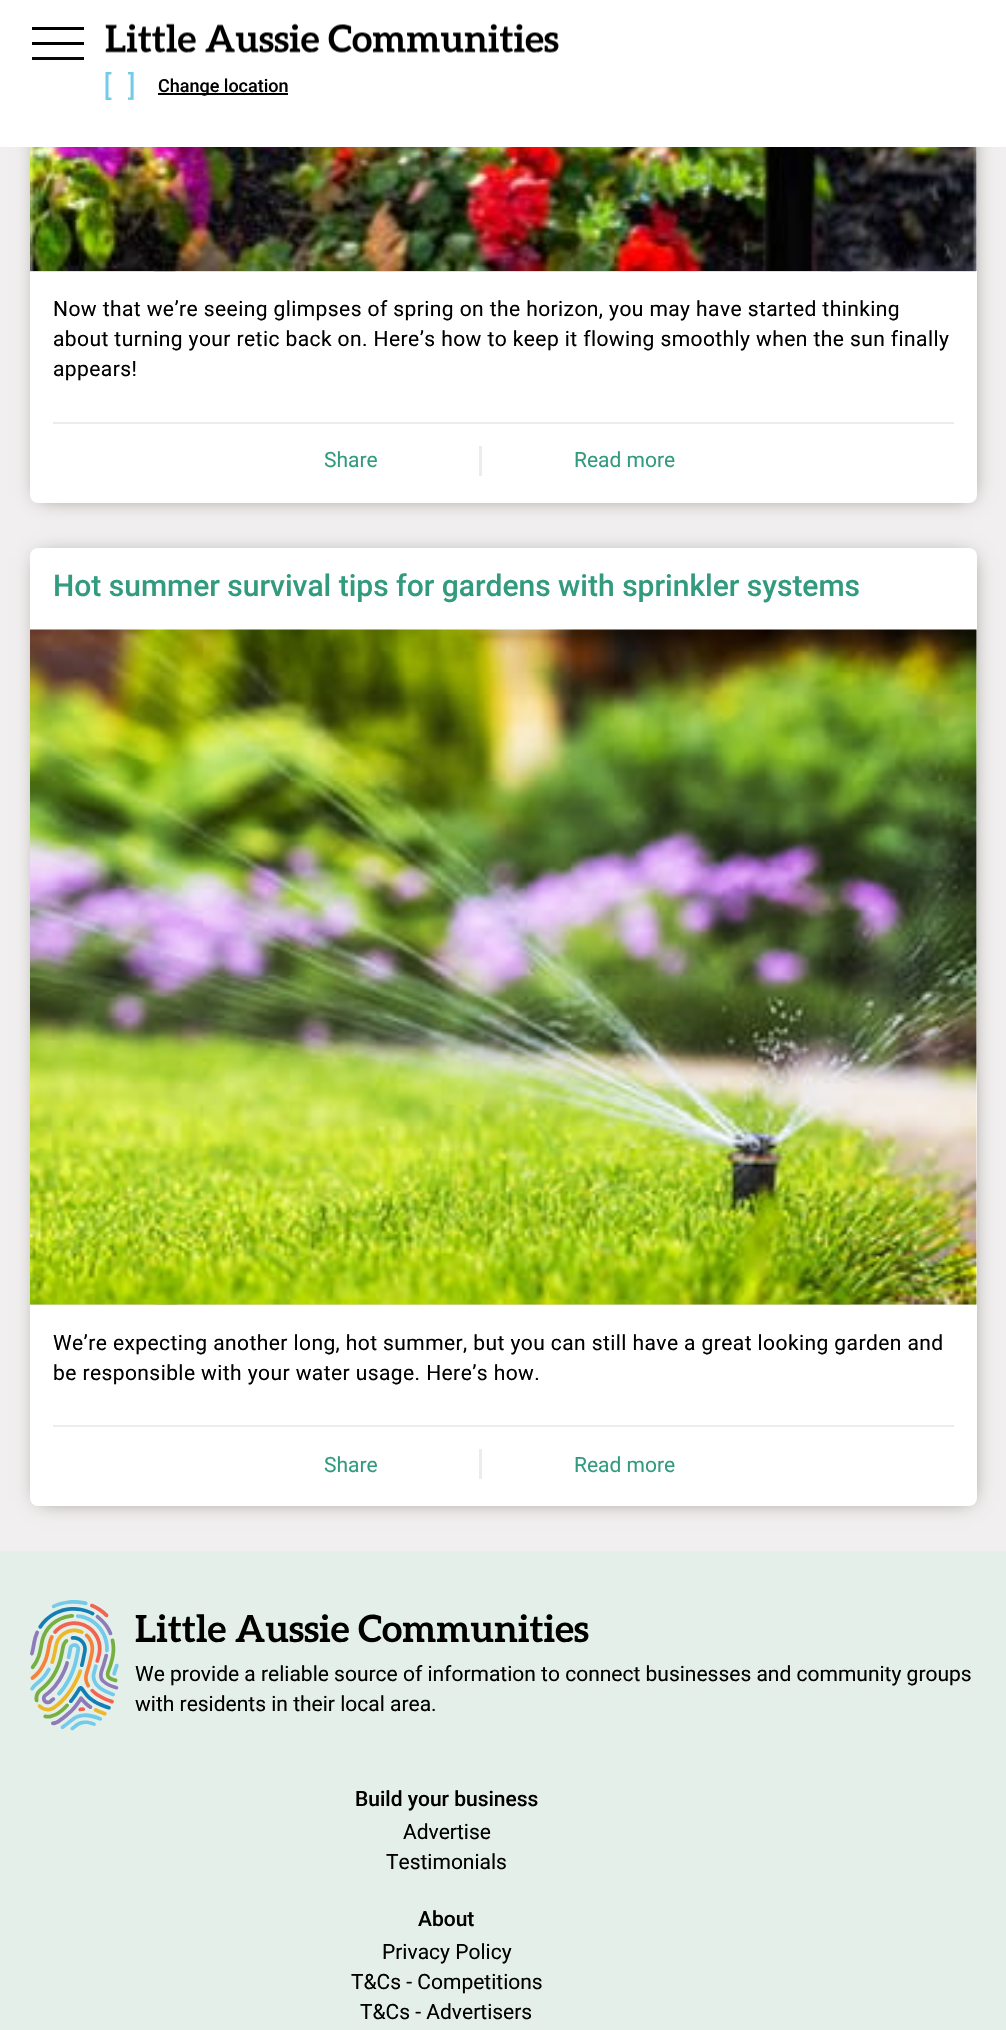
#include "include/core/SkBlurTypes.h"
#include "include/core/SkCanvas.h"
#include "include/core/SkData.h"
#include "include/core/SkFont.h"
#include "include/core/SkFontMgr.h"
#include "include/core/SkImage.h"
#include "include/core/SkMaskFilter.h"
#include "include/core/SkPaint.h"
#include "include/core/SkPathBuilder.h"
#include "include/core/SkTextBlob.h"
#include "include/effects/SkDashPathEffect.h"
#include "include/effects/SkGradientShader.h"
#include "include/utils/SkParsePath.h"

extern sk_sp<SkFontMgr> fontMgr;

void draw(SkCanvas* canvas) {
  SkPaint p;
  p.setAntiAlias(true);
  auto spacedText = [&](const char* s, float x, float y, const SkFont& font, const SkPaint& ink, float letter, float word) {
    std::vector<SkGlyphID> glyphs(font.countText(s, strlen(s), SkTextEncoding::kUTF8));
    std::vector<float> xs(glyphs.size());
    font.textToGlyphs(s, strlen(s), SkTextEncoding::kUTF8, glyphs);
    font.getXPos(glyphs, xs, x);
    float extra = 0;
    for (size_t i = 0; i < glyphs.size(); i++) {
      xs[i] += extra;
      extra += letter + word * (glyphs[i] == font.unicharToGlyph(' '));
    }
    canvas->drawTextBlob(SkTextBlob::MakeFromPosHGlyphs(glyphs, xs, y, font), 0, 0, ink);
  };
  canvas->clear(SkColorSetRGB(241, 239, 239));
  p.setColor(SkColorSetRGB(126, 117, 117));
  p.setMaskFilter(SkMaskFilter::MakeBlur(kNormal_SkBlurStyle, 10));
  canvas->drawRect(SkRect::MakeLTRB(39, -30, 971, 497), p);
  p.setMaskFilter(nullptr);
  p.setColor(SK_ColorWHITE);
  canvas->drawRoundRect(SkRect::MakeLTRB(30, -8, 977, 503), 8, 8, p);
  canvas->drawRect(SkRect::MakeLTRB(0, 0, 1006, 147), p);
  p.setColor(SK_ColorBLACK);
  canvas->drawRect(SkRect::MakeLTRB(32, 27, 84, 30), p);
  canvas->drawRect(SkRect::MakeLTRB(32, 42, 84, 45), p);
  p.setColor(SkColorSetRGB(7, 7, 7));
  canvas->drawRect(SkRect::MakeLTRB(32, 57, 84, 60), p);
  canvas->drawImageRect(SkImages::DeferredFromEncodedData(SkData::MakeFromFileName("images/1.png")), SkRect::MakeLTRB(105, 23, 559, 53), SkSamplingOptions());
  p.setColor(SkColorSetRGB(115, 202, 233));
  canvas->drawPath(SkPathBuilder().moveTo(111.5f, 72).cubicTo(111.5f, 75, 111.5f, 74.5f, 108.5f, 74.5f).lineTo(108.5f, 97.5f).cubicTo(111.5f, 97.5f, 111.5f, 97, 111.5f, 100).lineTo(105.5f, 100).lineTo(105.5f, 72).close().detach(), p);
  canvas->drawImageRect(SkImages::DeferredFromEncodedData(SkData::MakeFromFileName("images/2.png")), SkRect::MakeLTRB(128, 72, 134, 100), SkSamplingOptions());
  p.setColor(SK_ColorBLACK);
  canvas->drawRect(SkRect::MakeLTRB(158, 93, 288, 95), p);
  canvas->drawImageRect(SkImages::DeferredFromEncodedData(SkData::MakeFromFileName("images/3.png")), SkRect::MakeLTRB(30, 271, 976, 272), SkSamplingOptions());
  canvas->drawImageRect(SkImages::DeferredFromEncodedData(SkData::MakeFromFileName("images/4.png")), SkRect::MakeLTRB(30, 147, 977, 271), SkSamplingOptions());
  p.setColor(SkColorSetRGB(233, 237, 239));
  canvas->drawRect(SkRect::MakeLTRB(53, 422, 954, 424), p);
  canvas->drawRect(SkRect::MakeLTRB(479, 446, 482, 476), p);
  p.setColor(SkColorSetRGB(126, 117, 117));
  p.setMaskFilter(SkMaskFilter::MakeBlur(kNormal_SkBlurStyle, 10));
  canvas->drawRect(SkRect::MakeLTRB(39, 557, 971, 1500), p);
  p.setMaskFilter(nullptr);
  p.setColor(SK_ColorWHITE);
  canvas->drawRoundRect(SkRect::MakeLTRB(30, 548, 977, 1506), 8, 8, p);
  canvas->drawImageRect(SkImages::DeferredFromEncodedData(SkData::MakeFromFileName("images/5.png")), SkRect::MakeLTRB(30, 1304, 976, 1305), SkSamplingOptions());
  canvas->drawImageRect(SkImages::DeferredFromEncodedData(SkData::MakeFromFileName("images/6.png")), SkRect::MakeLTRB(30, 629, 977, 1305), SkSamplingOptions());
  p.setColor(SkColorSetRGB(233, 237, 239));
  canvas->drawRect(SkRect::MakeLTRB(53, 1425, 954, 1427), p);
  canvas->drawRect(SkRect::MakeLTRB(479, 1449, 482, 1479), p);
  p.setColor(SkColorSetRGB(228, 239, 234));
  canvas->drawRect(SkRect::MakeLTRB(0, 1551, 1006, 2030), p);
  canvas->drawImageRect(SkImages::DeferredFromEncodedData(SkData::MakeFromFileName("images/7.png")), SkRect::MakeLTRB(30, 1600, 119, 1731), SkSamplingOptions());
  canvas->drawImageRect(SkImages::DeferredFromEncodedData(SkData::MakeFromFileName("images/8.png")), SkRect::MakeLTRB(135, 1614, 589, 1643), SkSamplingOptions());
  SkFont font1(fontMgr->matchFamilyStyle("Roboto", SkFontStyle(500, SkFontStyle::kNormal_Width, SkFontStyle::kUpright_Slant)), 18);
  font1.setSubpixel(true);
  p.setColor(SK_ColorBLACK);
  canvas->drawString("Change location", 158, 92, font1, p);
  SkFont font2(fontMgr->matchFamilyStyle("Roboto", SkFontStyle::Normal()), 21);
  font2.setSubpixel(true);
  spacedText("Now that we’re seeing glimpses of spring on the horizon, you may have started thinking", 53, 316, font2, p, 0.42f, 0);
  spacedText("about turning your retic back on. Here’s how to keep it flowing smoothly when the sun finally", 53, 346, font2, p, 0.42f, 0);
  spacedText("appears!", 53, 376, font2, p, 0.42f, 0);
  p.setColor(SkColorSetRGB(50, 155, 126));
  canvas->drawString("Share", 324, 467, font2, p);
  canvas->drawString("Read more", 574, 467, font2, p);
  SkFont font3(fontMgr->matchFamilyStyle("Roboto", SkFontStyle(500, SkFontStyle::kNormal_Width, SkFontStyle::kUpright_Slant)), 30);
  font3.setSubpixel(true);
  canvas->drawString("Hot summer survival tips for gardens with sprinkler systems", 53, 596, font3, p);
  p.setColor(SK_ColorBLACK);
  spacedText("We’re expecting another long, hot summer, but you can still have a great looking garden and", 53, 1350, font2, p, 0.42f, 0);
  spacedText("be responsible with your water usage. Here’s how.", 53, 1380, font2, p, 0.42f, 0);
  p.setColor(SkColorSetRGB(50, 155, 126));
  canvas->drawString("Share", 324, 1472, font2, p);
  canvas->drawString("Read more", 574, 1472, font2, p);
  p.setColor(SK_ColorBLACK);
  canvas->drawString("We provide a reliable source of information to connect businesses and community groups", 135, 1681, font2, p);
  canvas->drawString("with residents in their local area.", 135, 1711, font2, p);
  SkFont font4(fontMgr->matchFamilyStyle("Roboto", SkFontStyle(500, SkFontStyle::kNormal_Width, SkFontStyle::kUpright_Slant)), 21);
  font4.setSubpixel(true);
  canvas->drawString("Build your business", 355, 1806, font4, p);
  canvas->drawString("Advertise", 403, 1839, font2, p);
  canvas->drawString("Testimonials", 386, 1869, font2, p);
  canvas->drawString("About", 418, 1926, font4, p);
  canvas->drawString("Privacy Policy", 382, 1959, font2, p);
  canvas->drawString("T&Cs - Competitions", 351, 1989, font2, p);
  canvas->drawString("T&Cs - Advertisers", 360, 2019, font2, p);
}
